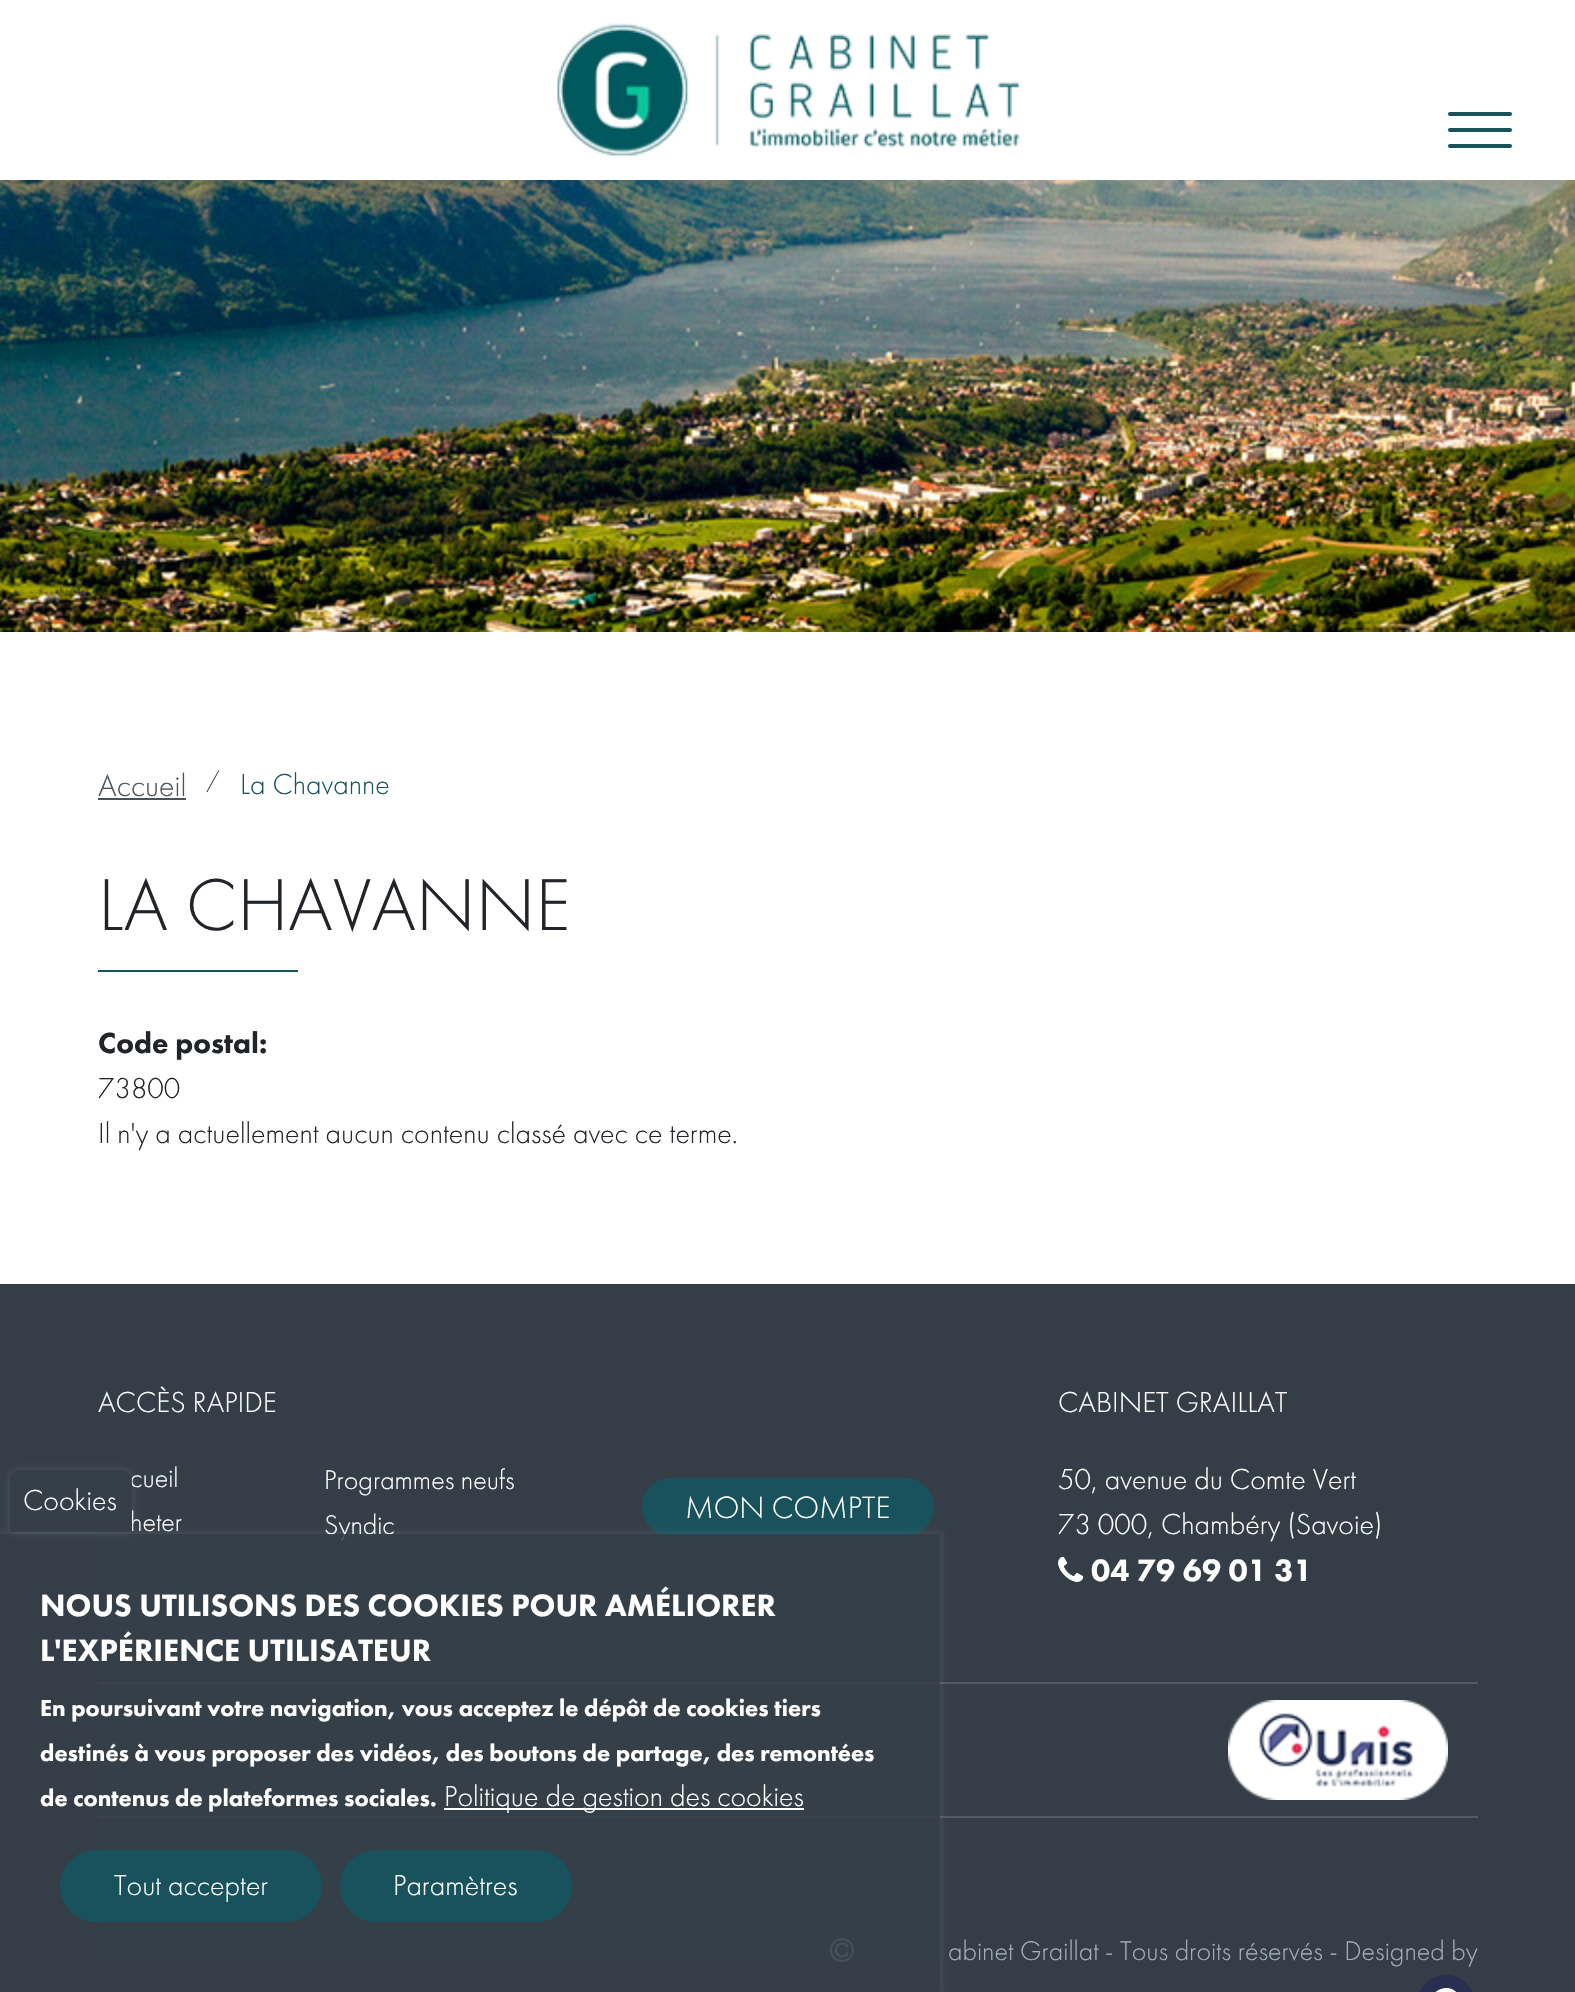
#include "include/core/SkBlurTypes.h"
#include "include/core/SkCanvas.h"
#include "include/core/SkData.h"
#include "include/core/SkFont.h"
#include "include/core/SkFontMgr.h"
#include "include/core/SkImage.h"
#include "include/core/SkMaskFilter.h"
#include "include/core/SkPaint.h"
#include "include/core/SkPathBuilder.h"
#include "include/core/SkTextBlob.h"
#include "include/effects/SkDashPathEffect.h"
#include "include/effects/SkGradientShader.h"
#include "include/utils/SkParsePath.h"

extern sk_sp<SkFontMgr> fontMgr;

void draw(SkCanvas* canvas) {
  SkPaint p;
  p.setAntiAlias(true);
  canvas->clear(SK_ColorWHITE);
  canvas->drawImageRect(SkImages::DeferredFromEncodedData(SkData::MakeFromFileName("images/2.png")), SkRect::MakeLTRB(0, 180, 1575, 632), SkSamplingOptions());
  p.setColor(SkColorSetARGB(13, 0, 0, 0));
  p.setMaskFilter(SkMaskFilter::MakeBlur(kNormal_SkBlurStyle, 10));
  canvas->drawRect(SkRect::MakeLTRB(0, 8, 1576, 188), p);
  p.setMaskFilter(nullptr);
  p.setColor(SK_ColorWHITE);
  canvas->drawRect(SkRect::MakeLTRB(0, 0, 1575, 180), p);
  canvas->drawImageRect(SkImages::DeferredFromEncodedData(SkData::MakeFromFileName("images/1.png")), SkRect::MakeLTRB(557, 23, 1021, 156), SkSamplingOptions());
  p.setColor(SkColorSetRGB(24, 82, 93));
  canvas->drawRoundRect(SkRect::MakeLTRB(1448, 112, 1512, 116), 2, 2, p);
  canvas->drawRoundRect(SkRect::MakeLTRB(1448, 128, 1512, 132), 2, 2, p);
  canvas->drawRoundRect(SkRect::MakeLTRB(1448, 144, 1512, 148), 2, 2, p);
  p.setColor(SkColorSetRGB(73, 81, 89));
  canvas->drawRect(SkRect::MakeLTRB(98, 798, 186, 800), p);
  p.setColor(SkColorSetRGB(24, 82, 93));
  canvas->drawRect(SkRect::MakeLTRB(98, 970, 298, 972), p);
  p.setColor(SkColorSetRGB(53, 62, 70));
  canvas->drawRect(SkRect::MakeLTRB(0, 1284, 1575, 1992), p);
  p.setColor(SkColorSetRGB(24, 82, 93));
  canvas->drawRoundRect(SkRect::MakeLTRB(644, 1480, 932, 1534), 27, 27, p);
  p.setStyle(SkPaint::kStroke_Style);
  p.setStrokeWidth(4);
  canvas->drawRoundRect(SkRect::MakeLTRB(644, 1480, 932, 1534), 27, 27, p);
  canvas->drawImageRect(SkImages::DeferredFromEncodedData(SkData::MakeFromFileName("images/3.png")), SkRect::MakeLTRB(1058, 1556, 1084, 1582), SkSamplingOptions());
  p.setStyle(SkPaint::kFill_Style);
  p.setColor(SkColorSetRGB(83, 91, 98));
  canvas->drawRect(SkRect::MakeLTRB(98, 1682, 1478, 1684), p);
  canvas->drawRect(SkRect::MakeLTRB(98, 1816, 1478, 1818), p);
  canvas->drawImageRect(SkImages::DeferredFromEncodedData(SkData::MakeFromFileName("images/4.png")), SkRect::MakeLTRB(1228, 1700, 1448, 1800), SkSamplingOptions());
  canvas->drawImageRect(SkImages::DeferredFromEncodedData(SkData::MakeFromFileName("images/5.png")), SkRect::MakeLTRB(830, 1938, 854, 1962), SkSamplingOptions());
  canvas->drawImageRect(SkImages::DeferredFromEncodedData(SkData::MakeFromFileName("images/6.png")), SkRect::MakeLTRB(1419, 1975, 1473, 1992), SkSamplingOptions());
  canvas->save();
  canvas->clipPath(SkPathBuilder(SkPathFillType::kEvenOdd).moveTo(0, 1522).lineTo(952, 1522).lineTo(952, 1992).lineTo(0, 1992).close().moveTo(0, 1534).lineTo(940, 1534).lineTo(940, 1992).lineTo(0, 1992).close().detach(), true);
  p.setColor(SkColorSetARGB(38, 164, 176, 188));
  p.setMaskFilter(SkMaskFilter::MakeBlur(kNormal_SkBlurStyle, 3));
  canvas->drawRect(SkRect::MakeLTRB(-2, 1532, 942, 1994), p);
  p.setMaskFilter(nullptr);
  canvas->restore();
  SkFont font1(fontMgr->matchFamilyStyle("Futura PT", SkFontStyle(300, SkFontStyle::kNormal_Width, SkFontStyle::kUpright_Slant)), 32);
  font1.setSubpixel(true);
  p.setColor(SkColorSetRGB(73, 81, 89));
  canvas->drawString("Accueil", 98, 796, font1, p);
  SkFont font2(fontMgr->matchFamilyStyle("Futura PT", SkFontStyle(300, SkFontStyle::kNormal_Width, SkFontStyle::kUpright_Slant)), 24);
  font2.setSubpixel(true);
  p.setColor(SkColorSetRGB(64, 64, 64));
  canvas->drawString("/", 206, 788, font2, p);
  SkFont font3(fontMgr->matchFamilyStyle("Futura PT", SkFontStyle(300, SkFontStyle::kNormal_Width, SkFontStyle::kUpright_Slant)), 30);
  font3.setSubpixel(true);
  p.setColor(SkColorSetRGB(24, 82, 93));
  canvas->drawString("La Chavanne", 240, 794, font3, p);
  SkFont font4(fontMgr->matchFamilyStyle("Futura PT", SkFontStyle(300, SkFontStyle::kNormal_Width, SkFontStyle::kUpright_Slant)), 76);
  font4.setSubpixel(true);
  p.setColor(SkColorSetRGB(33, 37, 41));
  canvas->drawString("LA CHAVANNE", 98, 930, font4, p);
  SkFont font5(fontMgr->matchFamilyStyle("Futura PT", SkFontStyle(900, SkFontStyle::kNormal_Width, SkFontStyle::kUpright_Slant)), 30);
  font5.setSubpixel(true);
  canvas->drawString("Code postal:", 98, 1053, font5, p);
  canvas->drawString("73800", 98, 1098, font3, p);
  canvas->drawString("Il n'y a actuellement aucun contenu classé avec ce terme.", 98, 1143, font3, p);
  p.setColor(SK_ColorWHITE);
  canvas->drawString("ACCÈS RAPIDE", 98, 1412, font3, p);
  SkFont font6(fontMgr->matchFamilyStyle("Futura PT", SkFontStyle(300, SkFontStyle::kNormal_Width, SkFontStyle::kUpright_Slant)), 28);
  font6.setSubpixel(true);
  canvas->drawString("cueil", 130, 1487, font6, p);
  canvas->drawString("Programmes neufs", 324, 1489, font6, p);
  canvas->drawString("heter", 130, 1531, font6, p);
  canvas->drawString("Syndic", 324, 1534, font6, p);
  canvas->drawString("MON COMPTE", 685, 1518, font1, p);
  canvas->drawString("CABINET GRAILLAT", 1058, 1412, font3, p);
  canvas->drawString("50, avenue du Comte Vert", 1058, 1489, font3, p);
  canvas->drawString("73 000, Chambéry (Savoie)", 1058, 1534, font3, p);
  SkFont font7(fontMgr->matchFamilyStyle("Futura PT", SkFontStyle(900, SkFontStyle::kNormal_Width, SkFontStyle::kUpright_Slant)), 32);
  font7.setSubpixel(true);
  canvas->drawString("04 79 69 01 31", 1091, 1581, font7, p);
  p.setColor(SkColorSetRGB(164, 176, 188));
  canvas->drawString("abinet Graillat - Tous droits réservés - Designed by", 948, 1960, font6, p);
  p.setColor(SkColorSetARGB(217, 53, 62, 70));
  canvas->drawRect(SkRect::MakeLTRB(98, 1534, 940, 1962), p);
  canvas->save();
  canvas->clipPath(SkPathBuilder(SkPathFillType::kEvenOdd).moveTo(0, 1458).lineTo(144, 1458).lineTo(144, 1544).lineTo(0, 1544).close().moveTo(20, 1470).lineTo(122, 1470).cubicTo(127.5f, 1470, 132, 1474.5f, 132, 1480).lineTo(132, 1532).lineTo(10, 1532).lineTo(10, 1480).cubicTo(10, 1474.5f, 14.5f, 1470, 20, 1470).close().detach(), true);
  p.setColor(SkColorSetARGB(38, 164, 176, 188));
  p.setMaskFilter(SkMaskFilter::MakeBlur(kNormal_SkBlurStyle, 3));
  canvas->drawRoundRect(SkRect::MakeLTRB(8, 1468, 134, 1534), 12, 12, p);
  p.setMaskFilter(nullptr);
  canvas->restore();
  p.setColor(SkColorSetARGB(217, 53, 62, 70));
  canvas->drawPath(SkPathBuilder().moveTo(20, 1470).lineTo(122, 1470).cubicTo(127.5f, 1470, 132, 1474.5f, 132, 1480).lineTo(132, 1532).lineTo(10, 1532).lineTo(10, 1480).cubicTo(10, 1474.5f, 14.5f, 1470, 20, 1470).close().detach(), p);
  p.setColor(SK_ColorWHITE);
  canvas->drawString("Cookies", 23, 1510, font3, p);
  canvas->drawString("NOUS UTILISONS DES COOKIES POUR AMÉLIORER", 40, 1616, font7, p);
  canvas->drawString("L'EXPÉRIENCE UTILISATEUR", 40, 1661, font7, p);
  SkFont font8(fontMgr->matchFamilyStyle("Futura PT", SkFontStyle(900, SkFontStyle::kNormal_Width, SkFontStyle::kUpright_Slant)), 24);
  font8.setSubpixel(true);
  canvas->drawString("En poursuivant votre navigation, vous acceptez le dépôt de cookies tiers", 40, 1716, font8, p);
  canvas->drawString("destinés à vous proposer des vidéos, des boutons de partage, des remontées", 40, 1761, font8, p);
  canvas->drawString("de contenus de plateformes sociales.", 40, 1806, font8, p);
  canvas->drawRect(SkRect::MakeLTRB(444, 1808, 804, 1810), p);
  canvas->drawString("Politique de gestion des cookies", 444, 1806, font3, p);
  p.setColor(SkColorSetRGB(24, 82, 93));
  canvas->drawRoundRect(SkRect::MakeLTRB(62, 1852, 320, 1920), 34, 34, p);
  p.setStyle(SkPaint::kStroke_Style);
  canvas->drawRoundRect(SkRect::MakeLTRB(62, 1852, 320, 1920), 34, 34, p);
  p.setStyle(SkPaint::kFill_Style);
  p.setColor(SK_ColorWHITE);
  canvas->drawString("Tout accepter", 114, 1895, font3, p);
  p.setColor(SkColorSetRGB(24, 82, 93));
  canvas->drawRoundRect(SkRect::MakeLTRB(342, 1852, 570, 1920), 34, 34, p);
  p.setStyle(SkPaint::kStroke_Style);
  canvas->drawRoundRect(SkRect::MakeLTRB(342, 1852, 570, 1920), 34, 34, p);
  p.setStyle(SkPaint::kFill_Style);
  p.setColor(SK_ColorWHITE);
  canvas->drawString("Paramètres", 393, 1895, font3, p);
}
